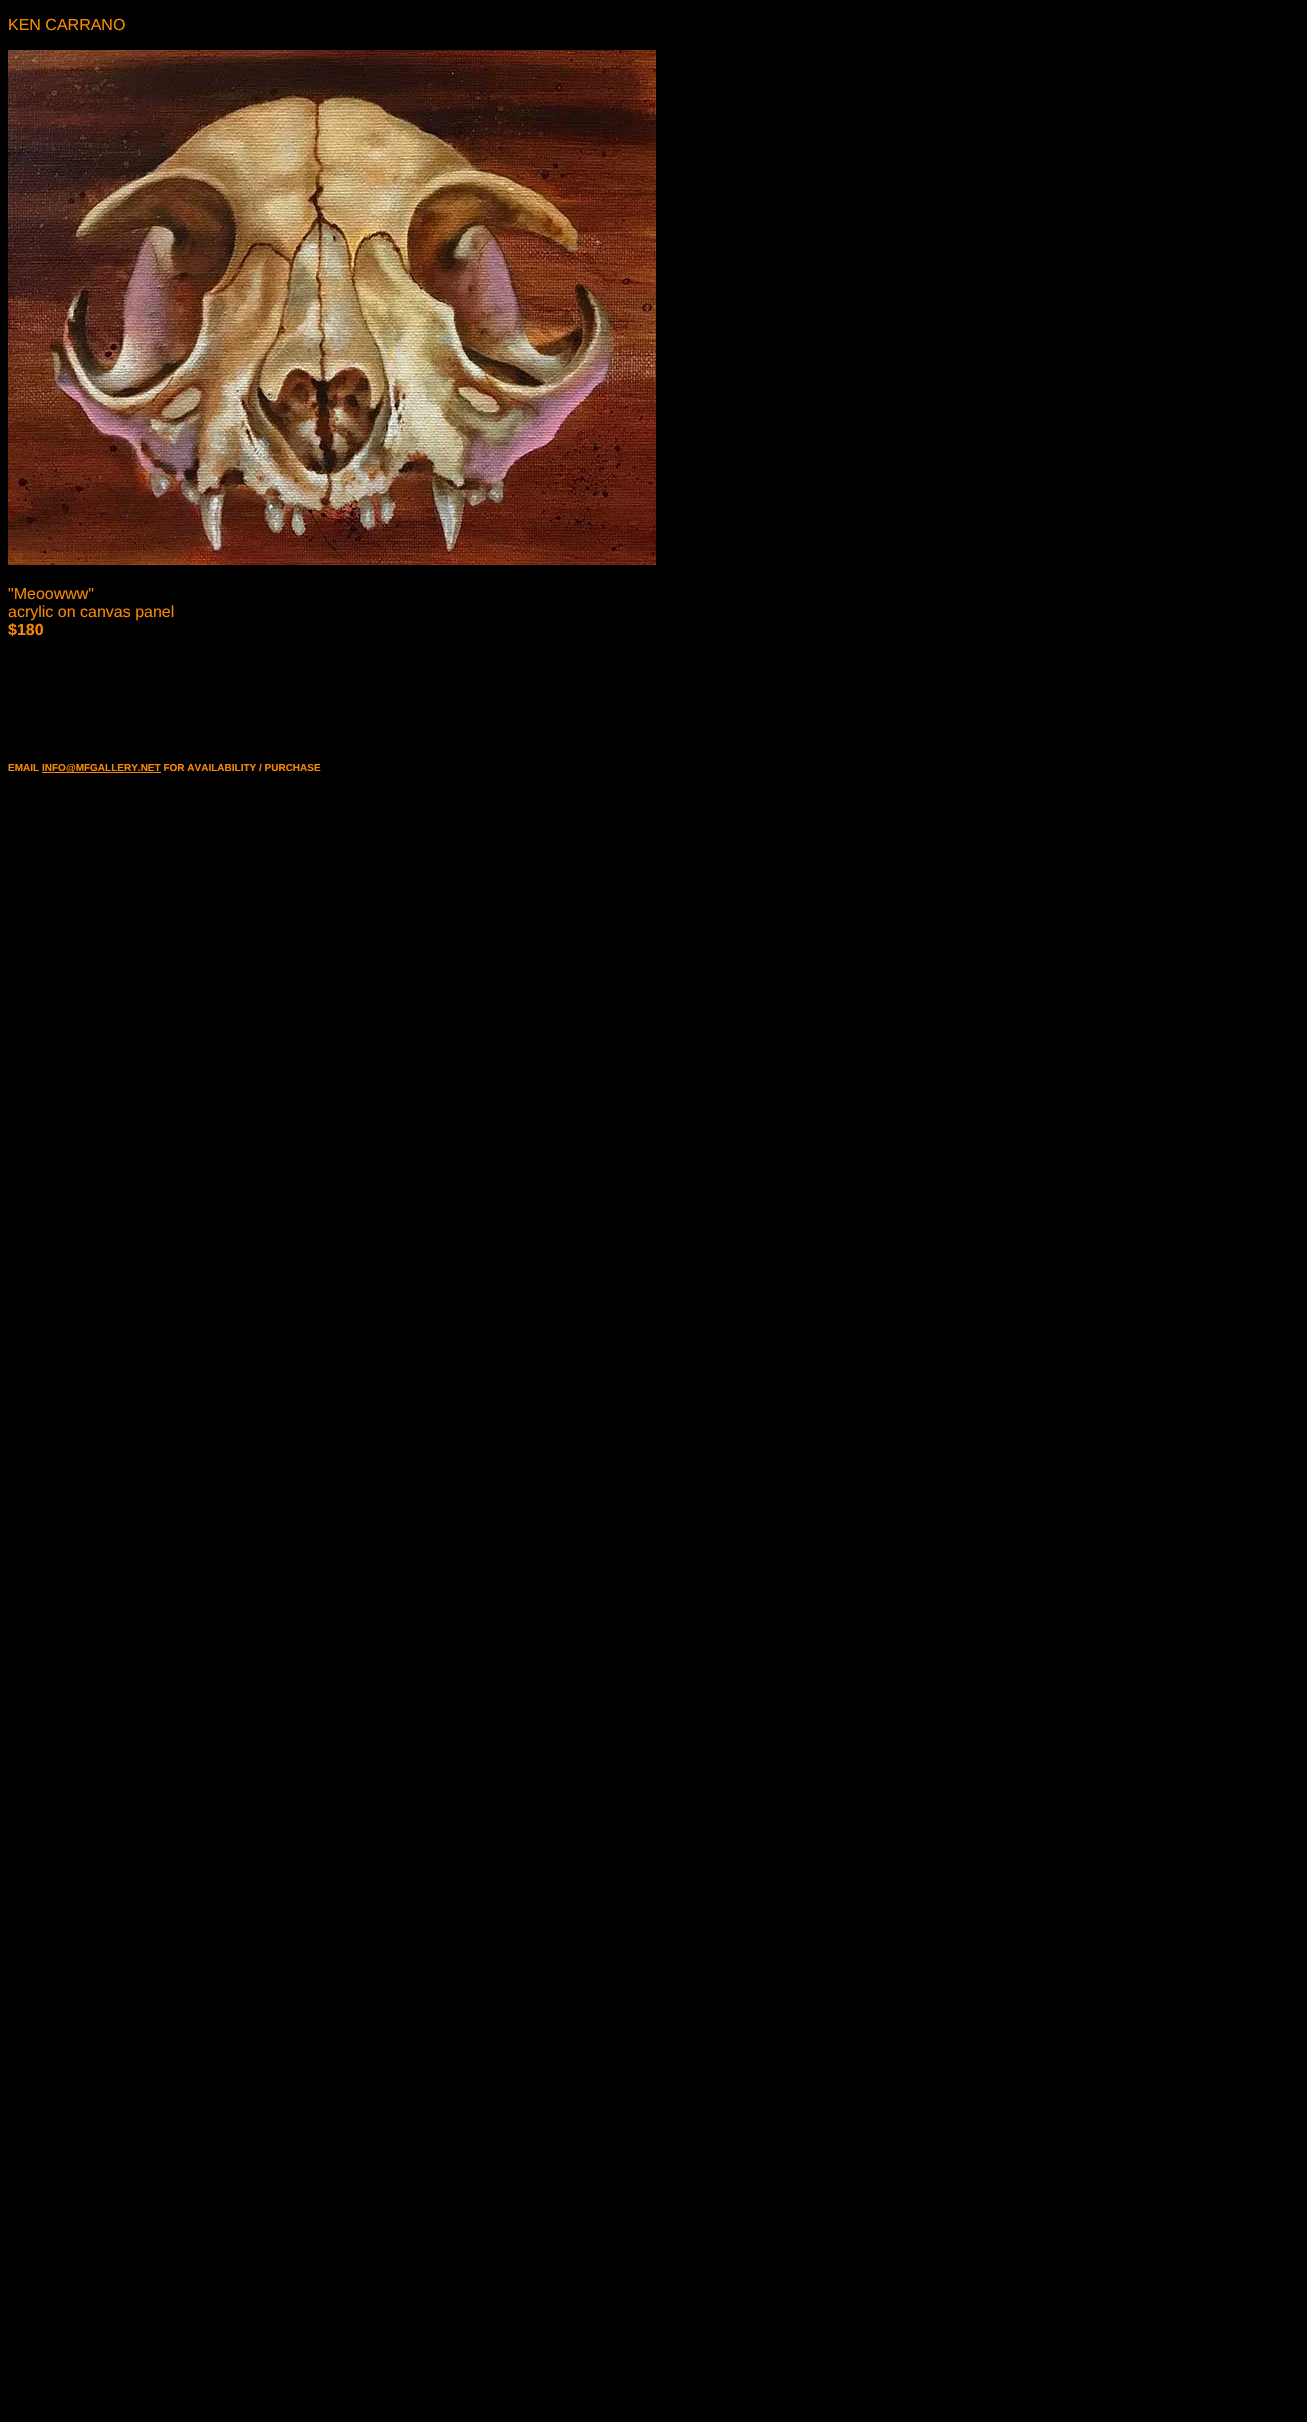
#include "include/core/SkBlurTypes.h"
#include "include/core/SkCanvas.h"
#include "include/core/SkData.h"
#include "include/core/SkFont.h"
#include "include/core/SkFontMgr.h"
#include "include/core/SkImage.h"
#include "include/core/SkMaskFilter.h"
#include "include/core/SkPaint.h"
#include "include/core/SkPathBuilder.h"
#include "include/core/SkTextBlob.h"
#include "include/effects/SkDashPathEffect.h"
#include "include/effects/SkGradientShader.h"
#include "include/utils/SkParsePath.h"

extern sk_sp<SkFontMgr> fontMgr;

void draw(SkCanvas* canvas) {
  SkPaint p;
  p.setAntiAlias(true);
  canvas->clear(SK_ColorBLACK);
  canvas->drawImageRect(SkImages::DeferredFromEncodedData(SkData::MakeFromFileName("images/1.png")), SkRect::MakeLTRB(8, 50, 656, 565), SkSamplingOptions());
  p.setColor(SkColorSetRGB(246, 136, 4));
  canvas->drawRect(SkRect::MakeLTRB(42, 772, 161, 773), p);
  SkFont font1(fontMgr->matchFamilyStyle("Liberation Sans", SkFontStyle::Normal()), 16);
  font1.setSubpixel(true);
  canvas->drawString("KEN CARRANO", 8, 30, font1, p);
  canvas->drawString("\"Meoowww\"", 8, 599, font1, p);
  canvas->drawString("acrylic on canvas panel", 8, 617, font1, p);
  SkFont font2(fontMgr->matchFamilyStyle("Liberation Sans", SkFontStyle::Bold()), 16);
  font2.setSubpixel(true);
  canvas->drawString("$180", 8, 635, font2, p);
  SkFont font3(fontMgr->matchFamilyStyle("Liberation Sans", SkFontStyle::Bold()), 10);
  font3.setSubpixel(true);
  canvas->drawString("EMAIL", 8, 771, font3, p);
  canvas->drawString("INFO@MFGALLERY.NET FOR AVAILABILITY / PURCHASE", 42, 771, font3, p);
}
